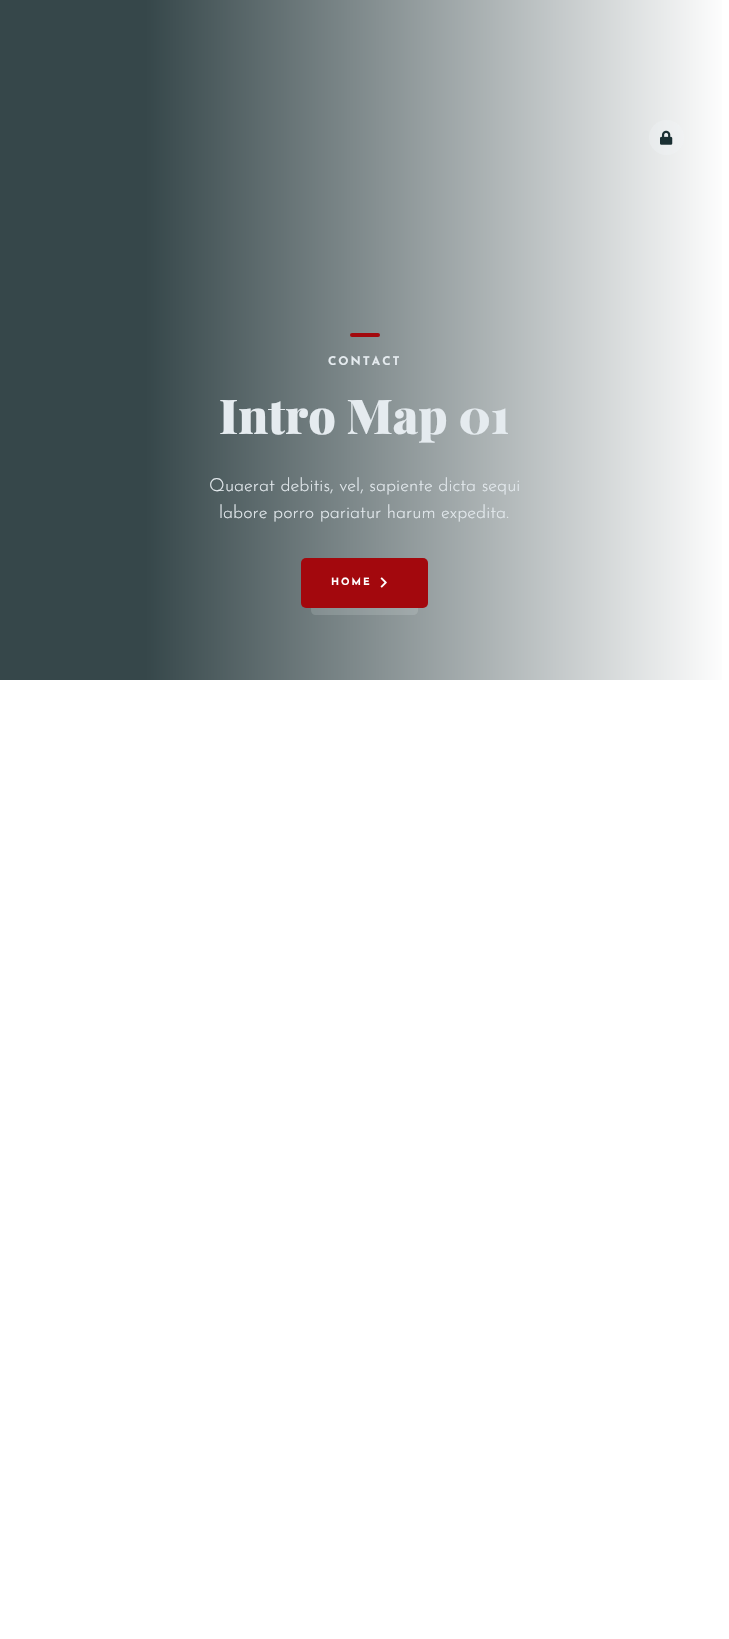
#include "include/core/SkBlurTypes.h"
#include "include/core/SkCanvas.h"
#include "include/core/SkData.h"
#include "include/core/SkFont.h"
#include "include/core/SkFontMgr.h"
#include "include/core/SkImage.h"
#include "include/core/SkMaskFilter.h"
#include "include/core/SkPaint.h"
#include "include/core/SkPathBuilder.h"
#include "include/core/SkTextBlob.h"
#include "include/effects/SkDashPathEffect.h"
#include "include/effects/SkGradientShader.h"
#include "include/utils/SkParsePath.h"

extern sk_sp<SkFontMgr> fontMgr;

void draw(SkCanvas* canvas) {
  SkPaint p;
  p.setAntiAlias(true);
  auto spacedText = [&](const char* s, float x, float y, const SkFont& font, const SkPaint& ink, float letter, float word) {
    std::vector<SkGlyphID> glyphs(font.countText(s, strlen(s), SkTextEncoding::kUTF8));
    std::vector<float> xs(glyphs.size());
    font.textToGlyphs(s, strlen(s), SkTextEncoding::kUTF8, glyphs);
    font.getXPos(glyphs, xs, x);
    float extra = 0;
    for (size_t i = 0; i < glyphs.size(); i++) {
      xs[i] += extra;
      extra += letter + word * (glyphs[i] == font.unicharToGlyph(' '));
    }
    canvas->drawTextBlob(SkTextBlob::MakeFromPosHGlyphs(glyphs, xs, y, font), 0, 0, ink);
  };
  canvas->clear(SK_ColorWHITE);
  {
    const SkColor colors[] = {SK_ColorWHITE, SkColorSetRGB(54, 71, 74)};
    const float stops[] = {0, 0.8f};
    const SkPoint ends[] = {{729, 340}, {0, 340}};
    p.setShader(SkGradientShader::MakeLinear(ends, colors, stops, 2, SkTileMode::kClamp));
    p.setAlpha(255);
  }
  canvas->drawRect(SkRect::MakeLTRB(0, 0, 722, 680), p);
  p.setShader(nullptr);
  p.setColor(SkColorSetARGB(77, 242, 246, 247));
  canvas->drawCircle(666.5f, 137.5f, 17.5f, p);
  canvas->drawImageRect(SkImages::DeferredFromEncodedData(SkData::MakeFromFileName("images/1.png")), SkRect::MakeLTRB(660, 130, 673, 145), SkSamplingOptions());
  p.setColor(SkColorSetRGB(163, 8, 13));
  canvas->drawRoundRect(SkRect::MakeLTRB(350, 333, 380, 337), 2, 2, p);
  canvas->drawRoundRect(SkRect::MakeLTRB(301, 558, 428, 608), 5, 5, p);
  canvas->drawImageRect(SkImages::DeferredFromEncodedData(SkData::MakeFromFileName("images/2.png")), SkRect::MakeLTRB(380, 577, 387, 588), SkSamplingOptions());
  p.setColor(SkColorSetARGB(38, 242, 246, 247));
  canvas->drawPath(SkPathBuilder().moveTo(311, 608).lineTo(418, 608).lineTo(418, 610).cubicTo(418, 613, 416, 615, 413, 615).lineTo(316, 615).cubicTo(313, 615, 311, 613, 311, 610).close().detach(), p);
  SkFont font1(fontMgr->matchFamilyStyle("Josefin Sans", SkFontStyle::Bold()), 12);
  font1.setSubpixel(true);
  p.setColor(SkColorSetRGB(229, 235, 239));
  spacedText("CONTACT", 328, 365, font1, p, 2, 0);
  SkFont font2(fontMgr->matchFamilyStyle("Playfair Display", SkFontStyle(900, SkFontStyle::kNormal_Width, SkFontStyle::kUpright_Slant)), 48);
  font2.setSubpixel(true);
  canvas->drawString("Intro Map 01", 219, 434, font2, p);
  SkFont font3(fontMgr->matchFamilyStyle("Josefin Sans", SkFontStyle(300, SkFontStyle::kNormal_Width, SkFontStyle::kUpright_Slant)), 18);
  font3.setSubpixel(true);
  canvas->drawString("Quaerat debitis, vel, sapiente dicta sequi", 209, 491, font3, p);
  canvas->drawString("labore porro pariatur harum expedita.", 219, 518, font3, p);
  SkFont font4(fontMgr->matchFamilyStyle("Josefin Sans", SkFontStyle::Bold()), 10);
  font4.setSubpixel(true);
  p.setColor(SK_ColorWHITE);
  spacedText("HOME", 331, 585, font4, p, 2, 0);
}
